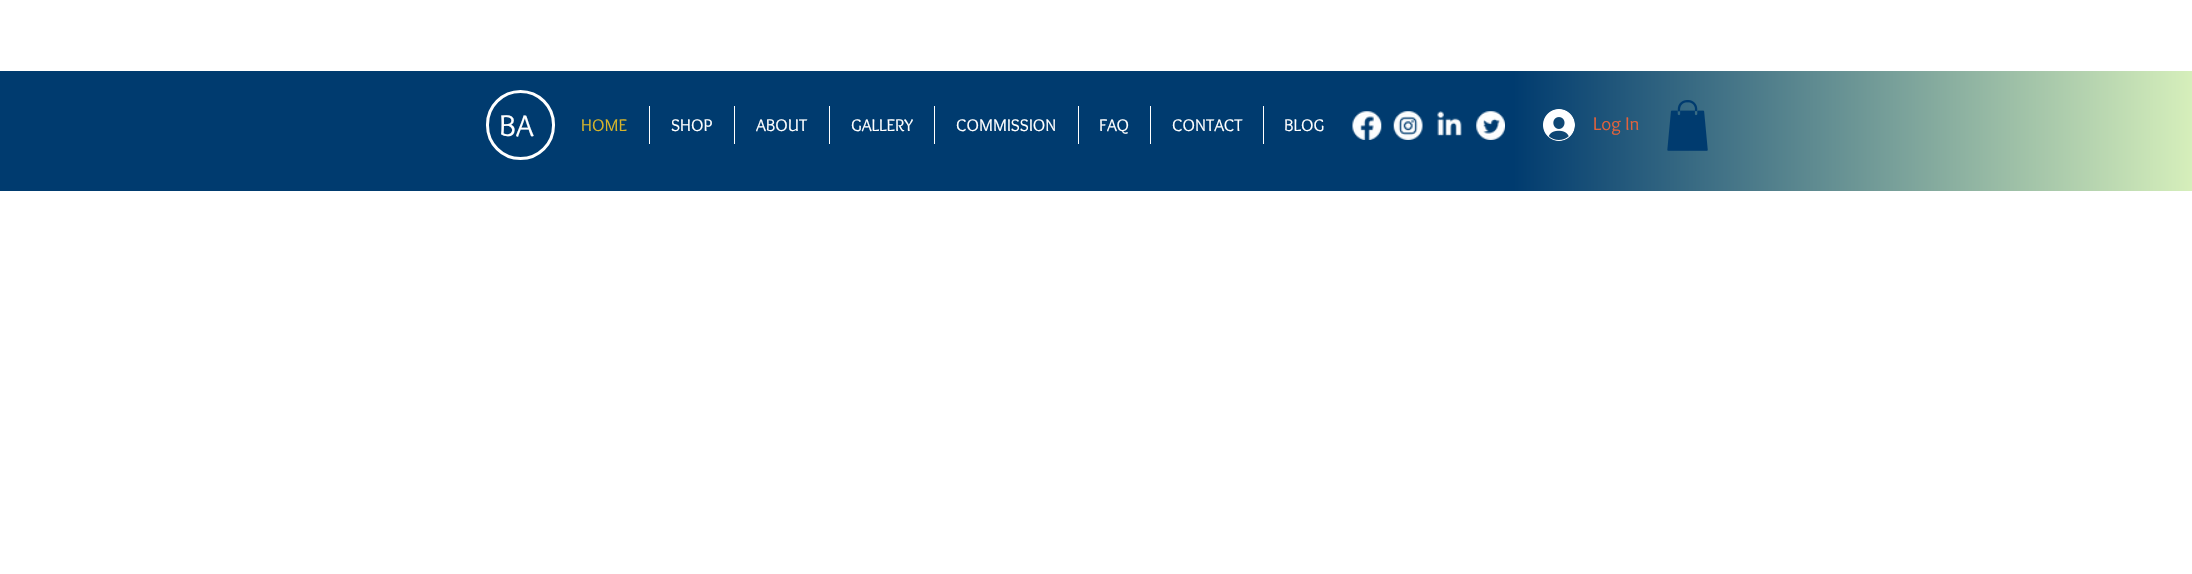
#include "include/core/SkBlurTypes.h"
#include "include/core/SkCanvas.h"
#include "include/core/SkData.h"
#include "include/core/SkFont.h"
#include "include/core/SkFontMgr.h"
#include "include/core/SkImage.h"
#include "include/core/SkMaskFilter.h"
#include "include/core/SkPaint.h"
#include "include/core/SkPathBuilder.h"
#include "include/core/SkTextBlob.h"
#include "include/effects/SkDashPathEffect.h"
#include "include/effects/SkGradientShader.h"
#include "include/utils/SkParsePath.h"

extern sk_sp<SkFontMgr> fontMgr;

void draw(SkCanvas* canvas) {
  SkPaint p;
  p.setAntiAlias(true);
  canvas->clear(SK_ColorWHITE);
  {
    const SkColor colors[] = {SkColorSetRGB(0, 59, 111), SkColorSetRGB(214, 239, 187)};
    const float stops[] = {0.69f, 1};
    const SkPoint ends[] = {{0, 131}, {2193, 131}};
    p.setShader(SkGradientShader::MakeLinear(ends, colors, stops, 2, SkTileMode::kClamp));
    p.setAlpha(255);
  }
  canvas->drawRect(SkRect::MakeLTRB(0, 71, 2192, 191), p);
  p.setStyle(SkPaint::kStroke_Style);
  p.setStrokeWidth(3);
  p.setShader(nullptr);
  p.setColor(SK_ColorWHITE);
  canvas->drawRoundRect(SkRect::MakeLTRB(487.5f, 91.5f, 553.5f, 158.5f), 33, 33, p);
  p.setStyle(SkPaint::kFill_Style);
  canvas->drawRect(SkRect::MakeLTRB(649, 106, 650, 144), p);
  canvas->drawRect(SkRect::MakeLTRB(734, 106, 735, 144), p);
  canvas->drawRect(SkRect::MakeLTRB(829, 106, 830, 144), p);
  canvas->drawRect(SkRect::MakeLTRB(934, 106, 935, 144), p);
  canvas->drawRect(SkRect::MakeLTRB(1078, 106, 1079, 144), p);
  canvas->drawRect(SkRect::MakeLTRB(1150, 106, 1151, 144), p);
  canvas->drawRect(SkRect::MakeLTRB(1263, 106, 1264, 144), p);
  canvas->drawImageRect(SkImages::DeferredFromEncodedData(SkData::MakeFromFileName("images/1.png")), SkRect::MakeLTRB(1352, 111, 1382, 140), SkSamplingOptions());
  canvas->drawImageRect(SkImages::DeferredFromEncodedData(SkData::MakeFromFileName("images/2.png")), SkRect::MakeLTRB(1393, 111, 1423, 140), SkSamplingOptions());
  canvas->drawImageRect(SkImages::DeferredFromEncodedData(SkData::MakeFromFileName("images/3.png")), SkRect::MakeLTRB(1437, 111, 1462, 136), SkSamplingOptions());
  canvas->drawImageRect(SkImages::DeferredFromEncodedData(SkData::MakeFromFileName("images/4.png")), SkRect::MakeLTRB(1476, 111, 1505, 140), SkSamplingOptions());
  canvas->drawImageRect(SkImages::DeferredFromEncodedData(SkData::MakeFromFileName("images/5.png")), SkRect::MakeLTRB(1543, 109, 1575, 141), SkSamplingOptions());
  canvas->drawImageRect(SkImages::DeferredFromEncodedData(SkData::MakeFromFileName("images/6.png")), SkRect::MakeLTRB(1667, 100, 1708, 151), SkSamplingOptions());
  SkFont font1(fontMgr->matchFamilyStyle("Overlock", SkFontStyle::Normal()), 31);
  font1.setSubpixel(true);
  canvas->drawString("BA", 499, 136, font1, p);
  SkFont font2(fontMgr->matchFamilyStyle("Overlock", SkFontStyle::Normal()), 17.5f);
  font2.setSubpixel(true);
  p.setColor(SkColorSetRGB(214, 180, 43));
  canvas->drawString("HOME", 581, 131, font2, p);
  p.setColor(SK_ColorWHITE);
  canvas->drawString("SHOP", 671, 131, font2, p);
  canvas->drawString("ABOUT", 756, 131, font2, p);
  canvas->drawString("GALLERY", 851, 131, font2, p);
  canvas->drawString("COMMISSION", 956, 131, font2, p);
  canvas->drawString("FAQ", 1099, 131, font2, p);
  canvas->drawString("CONTACT", 1172, 131, font2, p);
  canvas->drawString("BLOG", 1284, 131, font2, p);
  SkFont font3(fontMgr->matchFamilyStyle("Overlock", SkFontStyle::Normal()), 19);
  font3.setSubpixel(true);
  p.setColor(SkColorSetRGB(227, 98, 59));
  canvas->drawString("Log In", 1593, 130, font3, p);
}
